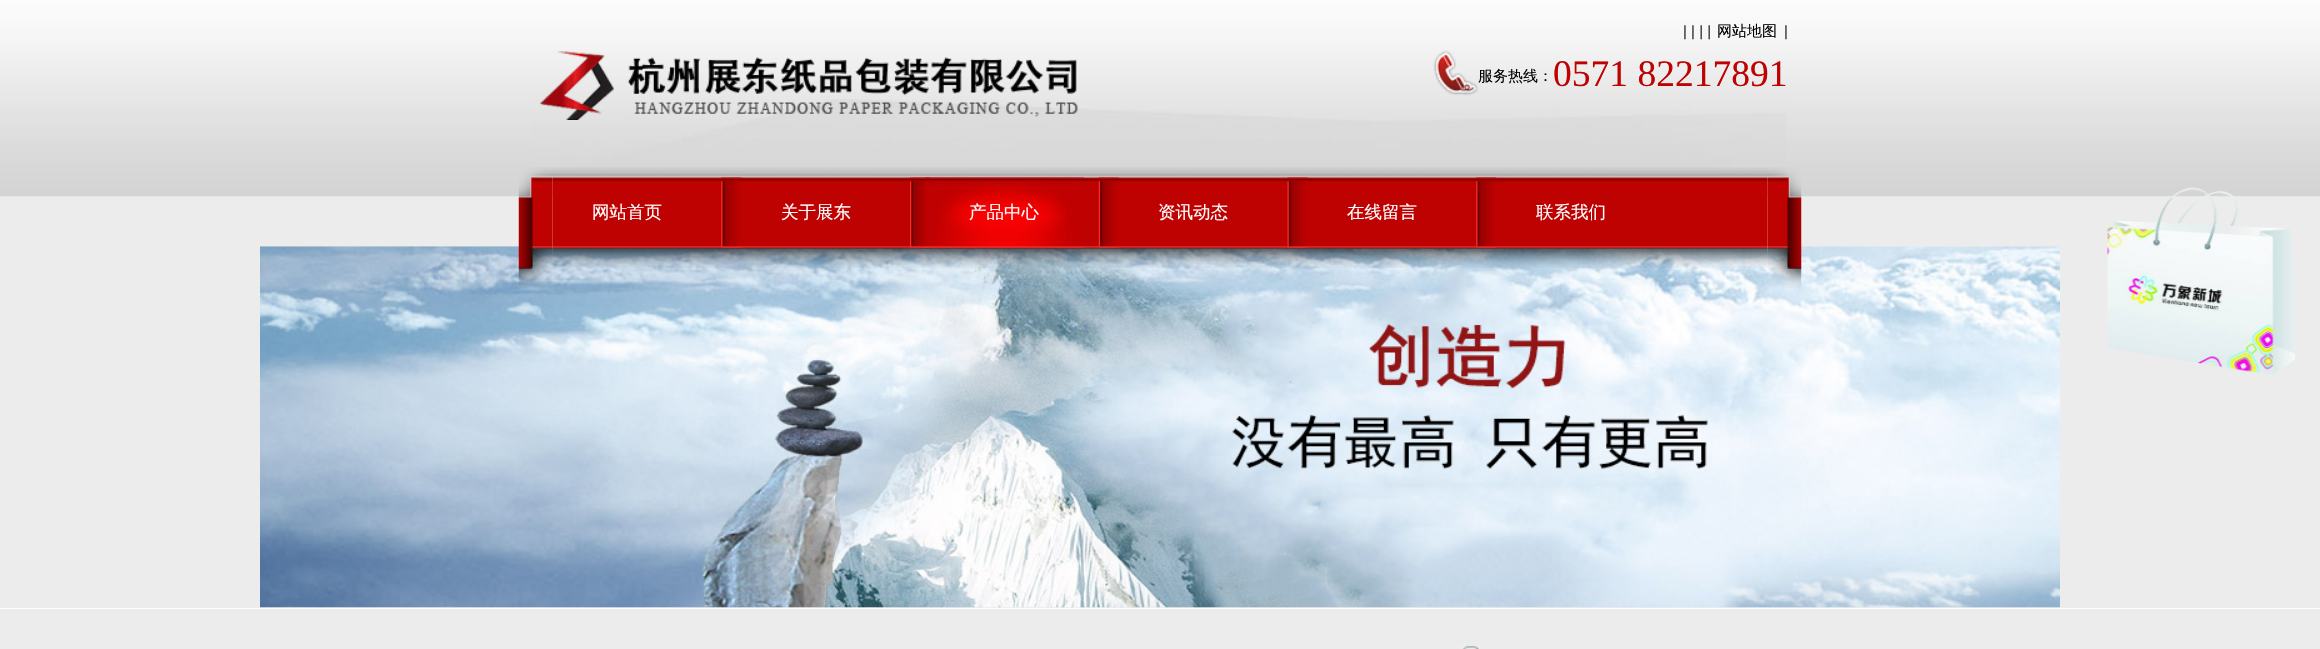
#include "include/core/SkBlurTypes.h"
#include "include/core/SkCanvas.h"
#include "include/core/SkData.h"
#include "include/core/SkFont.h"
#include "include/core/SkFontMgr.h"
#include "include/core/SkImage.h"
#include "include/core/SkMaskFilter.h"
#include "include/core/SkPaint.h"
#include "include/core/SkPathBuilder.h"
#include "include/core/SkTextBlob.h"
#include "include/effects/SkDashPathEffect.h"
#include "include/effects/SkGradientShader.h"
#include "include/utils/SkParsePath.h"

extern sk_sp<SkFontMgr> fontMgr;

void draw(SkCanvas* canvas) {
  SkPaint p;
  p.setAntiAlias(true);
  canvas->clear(SkColorSetRGB(236, 236, 236));
  canvas->drawImageRect(SkImages::DeferredFromEncodedData(SkData::MakeFromFileName("images/1.png")), SkRect::MakeLTRB(0, 0, 2320, 197), SkSamplingOptions());
  canvas->drawImageRect(SkImages::DeferredFromEncodedData(SkData::MakeFromFileName("images/11.png")), SkRect::MakeLTRB(532, 99, 1786, 175), SkSamplingOptions());
  canvas->drawImageRect(SkImages::DeferredFromEncodedData(SkData::MakeFromFileName("images/2.png")), SkRect::MakeLTRB(540, 51, 1078, 120), SkSamplingOptions());
  canvas->drawImageRect(SkImages::DeferredFromEncodedData(SkData::MakeFromFileName("images/3.png")), SkRect::MakeLTRB(1433, 50, 1478, 96), SkSamplingOptions());
  canvas->drawImageRect(SkImages::DeferredFromEncodedData(SkData::MakeFromFileName("images/15.png")), SkRect::MakeLTRB(260, 246, 2060, 608), SkSamplingOptions());
  canvas->drawImageRect(SkImages::DeferredFromEncodedData(SkData::MakeFromFileName("images/4.png")), SkRect::MakeLTRB(552, 167, 1768, 268), SkSamplingOptions());
  canvas->drawImageRect(SkImages::DeferredFromEncodedData(SkData::MakeFromFileName("images/5.png")), SkRect::MakeLTRB(721, 177, 742, 248), SkSamplingOptions());
  canvas->drawImageRect(SkImages::DeferredFromEncodedData(SkData::MakeFromFileName("images/6.png")), SkRect::MakeLTRB(910, 177, 930, 248), SkSamplingOptions());
  canvas->drawImageRect(SkImages::DeferredFromEncodedData(SkData::MakeFromFileName("images/7.png")), SkRect::MakeLTRB(925, 177, 1084, 248), SkSamplingOptions());
  canvas->drawImageRect(SkImages::DeferredFromEncodedData(SkData::MakeFromFileName("images/8.png")), SkRect::MakeLTRB(1098, 177, 1119, 248), SkSamplingOptions());
  canvas->drawImageRect(SkImages::DeferredFromEncodedData(SkData::MakeFromFileName("images/9.png")), SkRect::MakeLTRB(1287, 177, 1308, 248), SkSamplingOptions());
  canvas->drawImageRect(SkImages::DeferredFromEncodedData(SkData::MakeFromFileName("images/10.png")), SkRect::MakeLTRB(1476, 177, 1497, 248), SkSamplingOptions());
  canvas->drawImageRect(SkImages::DeferredFromEncodedData(SkData::MakeFromFileName("images/12.png")), SkRect::MakeLTRB(518, 167, 553, 288), SkSamplingOptions());
  canvas->drawImageRect(SkImages::DeferredFromEncodedData(SkData::MakeFromFileName("images/13.png")), SkRect::MakeLTRB(1767, 167, 1802, 288), SkSamplingOptions());
  canvas->drawImageRect(SkImages::DeferredFromEncodedData(SkData::MakeFromFileName("images/14.png")), SkRect::MakeLTRB(2107, 187, 2295, 375), SkSamplingOptions());
  p.setColor(SK_ColorWHITE);
  canvas->drawRect(SkRect::MakeLTRB(0, 608, 2320, 609), p);
  canvas->drawImageRect(SkImages::DeferredFromEncodedData(SkData::MakeFromFileName("images/16.png")), SkRect::MakeLTRB(1461, 646, 1480, 649), SkSamplingOptions());
  SkFont font1(fontMgr->matchFamilyStyle("Liberation Sans", SkFontStyle::Normal()), 15);
  font1.setSubpixel(true);
  p.setColor(SkColorSetRGB(51, 51, 51));
  canvas->drawString("| | | |", 1683, 36, font1, p);
  SkFont font2(fontMgr->matchFamilyStyle("WenQuanYi Zen Hei", SkFontStyle(500, SkFontStyle::kNormal_Width, SkFontStyle::kUpright_Slant)), 15);
  font2.setSubpixel(true);
  p.setColor(SK_ColorBLACK);
  canvas->drawString("网站地图", 1717, 36, font2, p);
  p.setColor(SkColorSetRGB(51, 51, 51));
  canvas->drawString("|", 1784, 36, font1, p);
  p.setColor(SK_ColorBLACK);
  canvas->drawString("服务热线：", 1478, 81, font2, p);
  SkFont font3(fontMgr->matchFamilyStyle("Liberation Serif", SkFontStyle::Normal()), 37.5f);
  font3.setSubpixel(true);
  p.setColor(SkColorSetRGB(190, 1, 1));
  canvas->drawString("0571 82217891", 1553, 86, font3, p);
  SkFont font4(fontMgr->matchFamilyStyle("WenQuanYi Zen Hei", SkFontStyle(500, SkFontStyle::kNormal_Width, SkFontStyle::kUpright_Slant)), 17.5f);
  font4.setSubpixel(true);
  p.setColor(SK_ColorWHITE);
  canvas->drawString("网站首页", 592, 218, font4, p);
  canvas->drawString("关于展东", 781, 218, font4, p);
  canvas->drawString("产品中心", 969, 218, font4, p);
  canvas->drawString("资讯动态", 1158, 218, font4, p);
  canvas->drawString("在线留言", 1347, 218, font4, p);
  canvas->drawString("联系我们", 1536, 218, font4, p);
}
